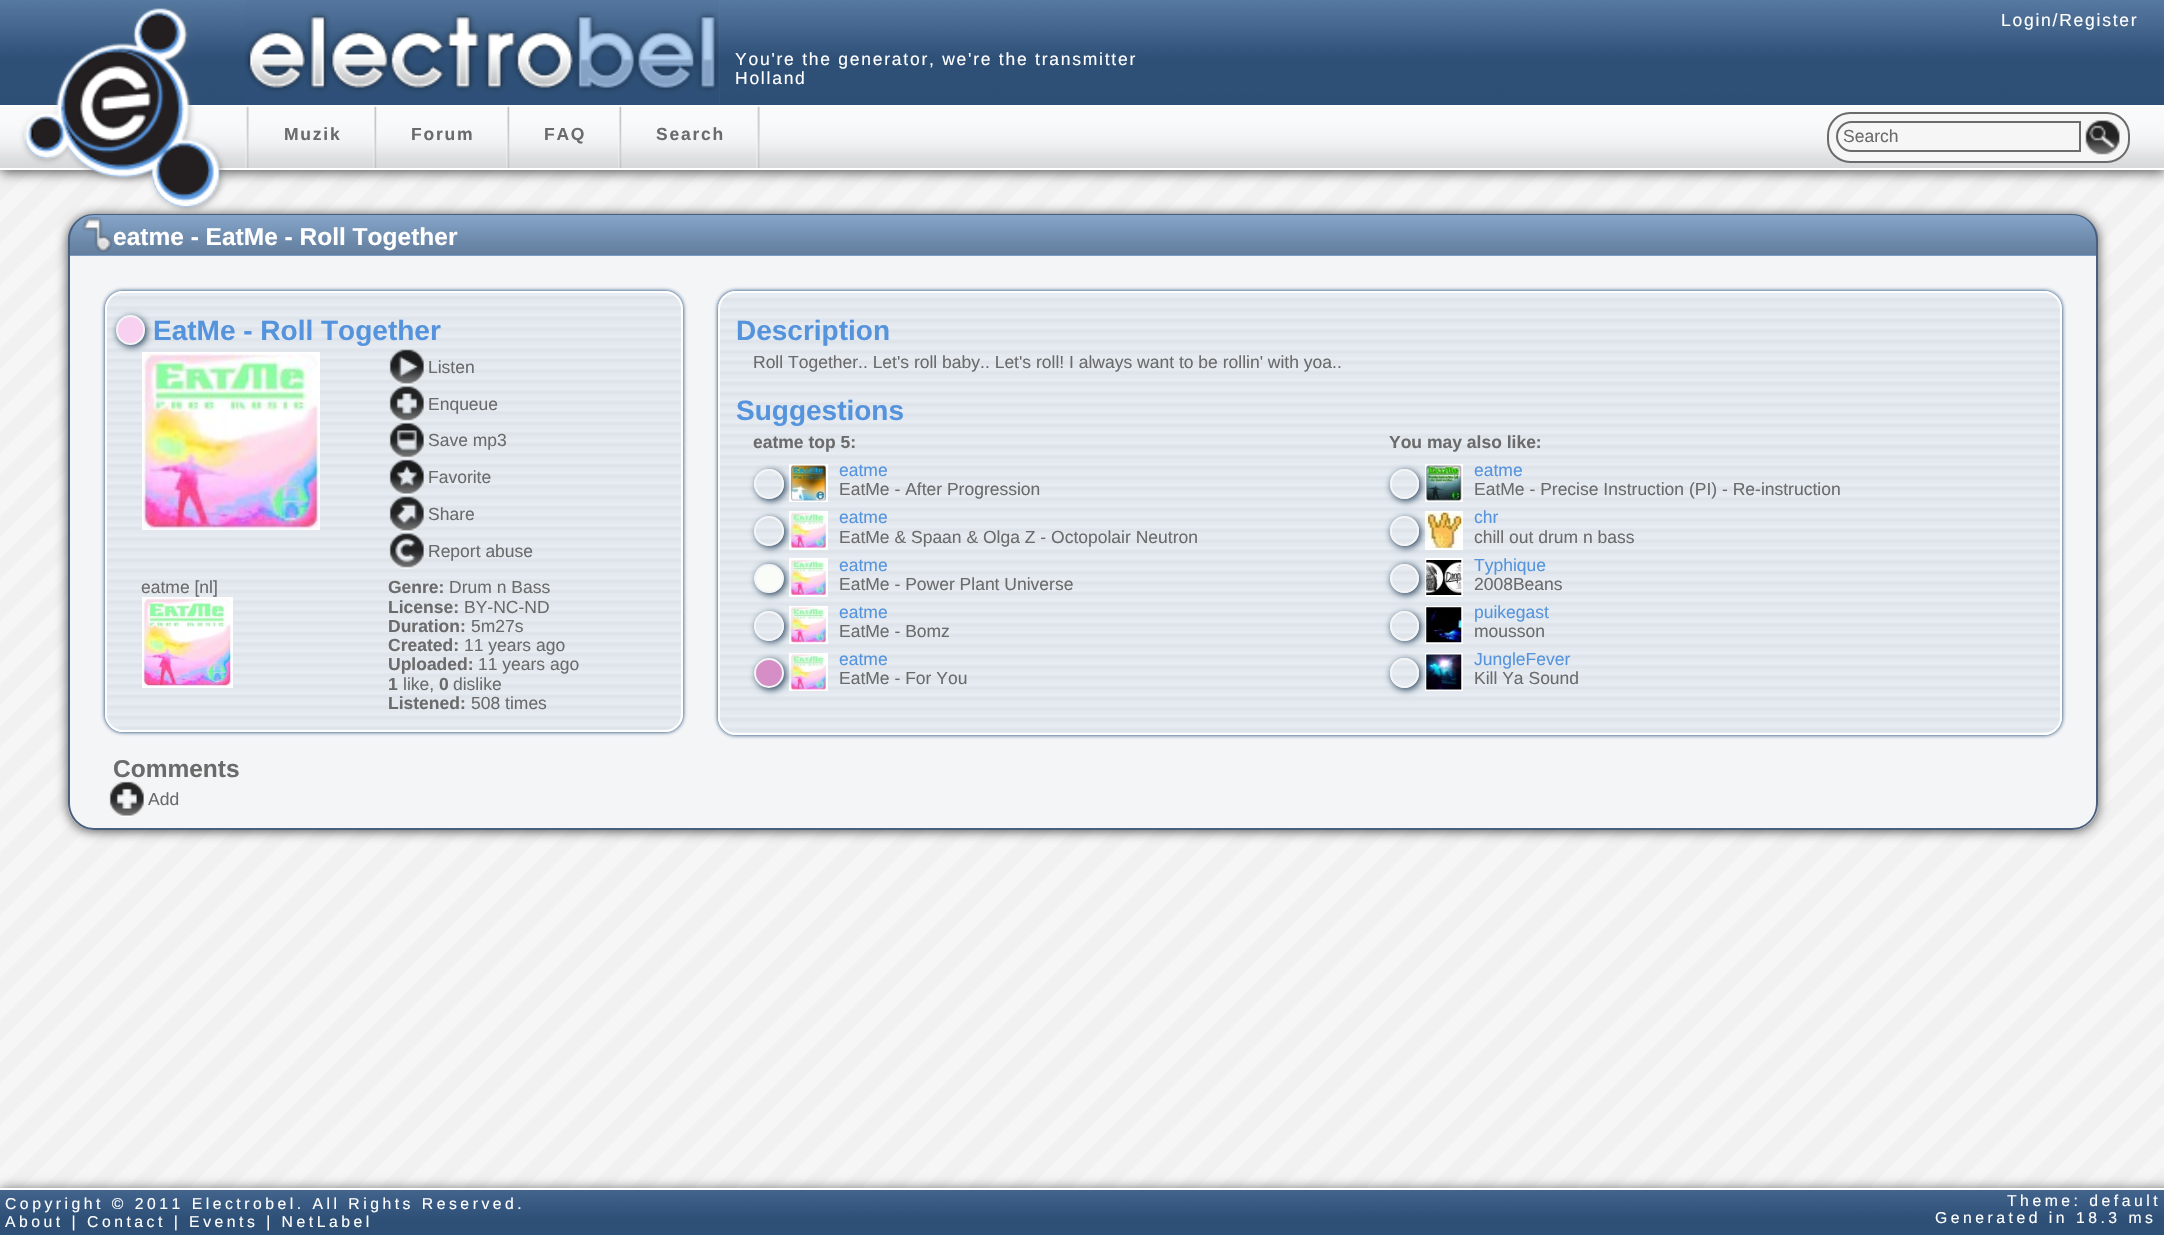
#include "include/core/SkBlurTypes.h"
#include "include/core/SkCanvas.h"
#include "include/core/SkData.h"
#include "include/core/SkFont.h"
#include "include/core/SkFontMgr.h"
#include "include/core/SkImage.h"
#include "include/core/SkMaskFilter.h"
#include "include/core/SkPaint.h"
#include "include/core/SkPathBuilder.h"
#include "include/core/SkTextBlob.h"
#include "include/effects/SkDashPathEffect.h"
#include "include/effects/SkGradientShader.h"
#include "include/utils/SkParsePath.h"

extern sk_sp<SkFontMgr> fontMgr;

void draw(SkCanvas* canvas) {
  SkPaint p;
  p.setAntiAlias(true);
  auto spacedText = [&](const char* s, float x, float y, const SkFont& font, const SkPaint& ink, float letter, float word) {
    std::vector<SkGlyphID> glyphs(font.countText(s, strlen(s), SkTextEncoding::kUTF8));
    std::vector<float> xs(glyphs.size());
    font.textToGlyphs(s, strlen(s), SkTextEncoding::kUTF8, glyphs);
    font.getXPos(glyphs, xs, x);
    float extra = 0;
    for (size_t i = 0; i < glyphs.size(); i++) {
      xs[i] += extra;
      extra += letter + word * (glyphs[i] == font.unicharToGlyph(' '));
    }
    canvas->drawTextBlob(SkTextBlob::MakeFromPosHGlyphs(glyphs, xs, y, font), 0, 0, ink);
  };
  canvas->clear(SkColorSetRGB(246, 246, 246));
  canvas->drawImageRect(SkImages::DeferredFromEncodedData(SkData::MakeFromFileName("images/1.png")), SkRect::MakeLTRB(0, 170, 2164, 1188), SkSamplingOptions());
  p.setColor(SkColorSetRGB(77, 77, 77));
  p.setMaskFilter(SkMaskFilter::MakeBlur(kNormal_SkBlurStyle, 6));
  canvas->drawRect(SkRect::MakeLTRB(0, 107, 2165, 172), p);
  p.setMaskFilter(nullptr);
  p.setColor(SkColorSetRGB(85, 148, 221));
  canvas->drawRect(SkRect::MakeLTRB(0, 0, 2164, 105), p);
  canvas->drawImageRect(SkImages::DeferredFromEncodedData(SkData::MakeFromFileName("images/2.png")), SkRect::MakeLTRB(0, 0, 245, 105), SkSamplingOptions());
  p.setColor(SkColorSetARGB(153, 107, 107, 107));
  p.setMaskFilter(SkMaskFilter::MakeBlur(kNormal_SkBlurStyle, 3.5f));
  canvas->drawRoundRect(SkRect::MakeLTRB(137, 11, 186, 60), 24.5f, 24.5f, p);
  p.setMaskFilter(nullptr);
  p.setColor(SkColorSetRGB(85, 148, 221));
  canvas->drawCircle(159.5f, 33.5f, 24.5f, p);
  p.setColor(SkColorSetRGB(244, 245, 247));
  canvas->drawRect(SkRect::MakeLTRB(0, 107, 2164, 168), p);
  canvas->drawImageRect(SkImages::DeferredFromEncodedData(SkData::MakeFromFileName("images/6.png")), SkRect::MakeLTRB(0, 107, 2164, 168), SkSamplingOptions());
  p.setColor(SK_ColorWHITE);
  canvas->drawRect(SkRect::MakeLTRB(0, 105, 2164, 107), p);
  canvas->drawRect(SkRect::MakeLTRB(0, 168, 2164, 170), p);
  p.setColor(SkColorSetARGB(153, 107, 107, 107));
  p.setMaskFilter(SkMaskFilter::MakeBlur(kNormal_SkBlurStyle, 3.5f));
  canvas->drawRoundRect(SkRect::MakeLTRB(26, 117, 68, 159), 21, 21, p);
  p.setMaskFilter(nullptr);
  p.setColor(SkColorSetRGB(85, 148, 221));
  canvas->drawCircle(46, 137, 21, p);
  p.setColor(SkColorSetRGB(77, 77, 77));
  p.setMaskFilter(SkMaskFilter::MakeBlur(kNormal_SkBlurStyle, 6));
  canvas->drawRoundRect(SkRect::MakeLTRB(68, 215, 2098, 831), 26, 26, p);
  p.setMaskFilter(nullptr);
  p.setColor(SkColorSetRGB(132, 168, 209));
  canvas->drawPath(SkPathBuilder().moveTo(94, 214).lineTo(2072, 214).cubicTo(2086.5f, 214, 2098, 225.5f, 2098, 240).lineTo(2098, 256).lineTo(68, 256).lineTo(68, 240).cubicTo(68, 225.5f, 79.5f, 214, 94, 214).close().detach(), p);
  canvas->drawImageRect(SkImages::DeferredFromEncodedData(SkData::MakeFromFileName("images/10.png")), SkRect::MakeLTRB(68, 214, 2098, 256), SkSamplingOptions());
  p.setColor(SkColorSetRGB(72, 95, 126));
  canvas->drawPath(SkPathBuilder(SkPathFillType::kEvenOdd).moveTo(94, 214).lineTo(2072, 214).cubicTo(2086, 214, 2098, 225, 2098, 240).lineTo(2098, 256).lineTo(68, 256).lineTo(68, 240).cubicTo(68, 225, 80, 214, 94, 214).close().moveTo(94, 215).lineTo(2072, 215).cubicTo(2086, 215, 2096, 226, 2096, 240).lineTo(2096, 256).lineTo(70, 256).lineTo(70, 240).cubicTo(70, 226, 81, 215, 94, 215).close().detach(), p);
  p.setColor(SkColorSetARGB(153, 107, 107, 107));
  p.setMaskFilter(SkMaskFilter::MakeBlur(kNormal_SkBlurStyle, 3.5f));
  canvas->drawRoundRect(SkRect::MakeLTRB(154, 142, 221, 208), 33, 33, p);
  p.setMaskFilter(nullptr);
  p.setColor(SkColorSetRGB(85, 148, 221));
  canvas->drawCircle(185.5f, 173.5f, 33.5f, p);
  p.setColor(SkColorSetARGB(153, 107, 107, 107));
  p.setMaskFilter(SkMaskFilter::MakeBlur(kNormal_SkBlurStyle, 3.5f));
  canvas->drawRoundRect(SkRect::MakeLTRB(60, 49, 189, 179), 64.5f, 64.5f, p);
  p.setMaskFilter(nullptr);
  p.setColor(SkColorSetRGB(85, 148, 221));
  canvas->drawRoundRect(SkRect::MakeLTRB(58, 47, 187, 177), 64.5f, 64.5f, p);
  canvas->drawImageRect(SkImages::DeferredFromEncodedData(SkData::MakeFromFileName("images/3.png")), SkRect::MakeLTRB(24, 8, 220, 207), SkSamplingOptions());
  canvas->drawImageRect(SkImages::DeferredFromEncodedData(SkData::MakeFromFileName("images/5.png")), SkRect::MakeLTRB(719, 0, 2164, 105), SkSamplingOptions());
  canvas->drawImageRect(SkImages::DeferredFromEncodedData(SkData::MakeFromFileName("images/4.png")), SkRect::MakeLTRB(245, 0, 720, 105), SkSamplingOptions());
  canvas->drawImageRect(SkImages::DeferredFromEncodedData(SkData::MakeFromFileName("images/7.png")), SkRect::MakeLTRB(245, 106, 249, 168), SkSamplingOptions());
  canvas->drawImageRect(SkImages::DeferredFromEncodedData(SkData::MakeFromFileName("images/8.png")), SkRect::MakeLTRB(373, 106, 377, 168), SkSamplingOptions());
  canvas->drawImageRect(SkImages::DeferredFromEncodedData(SkData::MakeFromFileName("images/8.png")), SkRect::MakeLTRB(506, 106, 510, 168), SkSamplingOptions());
  canvas->drawImageRect(SkImages::DeferredFromEncodedData(SkData::MakeFromFileName("images/8.png")), SkRect::MakeLTRB(618, 106, 622, 168), SkSamplingOptions());
  canvas->drawImageRect(SkImages::DeferredFromEncodedData(SkData::MakeFromFileName("images/7.png")), SkRect::MakeLTRB(756, 106, 760, 168), SkSamplingOptions());
  p.setColor(SkColorSetRGB(246, 246, 246));
  canvas->drawRoundRect(SkRect::MakeLTRB(1828, 113, 2129, 162), 22, 22, p);
  p.setStyle(SkPaint::kStroke_Style);
  p.setStrokeWidth(2);
  p.setColor(SkColorSetRGB(107, 107, 107));
  canvas->drawRoundRect(SkRect::MakeLTRB(1828, 113, 2129, 162), 22, 22, p);
  canvas->drawPath(SkPathBuilder().moveTo(1851.5f, 122).lineTo(2080, 122).lineTo(2080, 151).lineTo(1851.5f, 151).cubicTo(1843.5f, 151, 1837, 144.5f, 1837, 136.5f).cubicTo(1837, 128.5f, 1843.5f, 122, 1851.5f, 122).close().detach(), p);
  canvas->drawImageRect(SkImages::DeferredFromEncodedData(SkData::MakeFromFileName("images/9.png")), SkRect::MakeLTRB(2085, 120, 2120, 156), SkSamplingOptions());
  p.setStyle(SkPaint::kFill_Style);
  p.setColor(SkColorSetRGB(244, 245, 247));
  canvas->drawPath(SkPathBuilder().moveTo(68, 256).lineTo(2098, 256).lineTo(2098, 804).cubicTo(2098, 818.5f, 2086.5f, 830, 2072, 830).lineTo(94, 830).cubicTo(79.5f, 830, 68, 818.5f, 68, 804).close().detach(), p);
  p.setColor(SkColorSetRGB(72, 95, 126));
  canvas->drawPath(SkPathBuilder(SkPathFillType::kEvenOdd).moveTo(68, 256).lineTo(2098, 256).lineTo(2098, 803).cubicTo(2098, 818, 2086, 830, 2072, 830).lineTo(94, 830).cubicTo(80, 830, 68, 818, 68, 803).close().moveTo(70, 256).lineTo(2096, 256).lineTo(2096, 803).cubicTo(2096, 817, 2086, 828, 2072, 828).lineTo(94, 828).cubicTo(81, 828, 70, 817, 70, 803).close().detach(), p);
  canvas->drawImageRect(SkImages::DeferredFromEncodedData(SkData::MakeFromFileName("images/11.png")), SkRect::MakeLTRB(82, 217, 112, 252), SkSamplingOptions());
  p.setColor(SkColorSetRGB(0, 51, 102));
  p.setMaskFilter(SkMaskFilter::MakeBlur(kNormal_SkBlurStyle, 2));
  canvas->drawRoundRect(SkRect::MakeLTRB(105, 291, 683, 732), 18, 18, p);
  p.setMaskFilter(nullptr);
  p.setColor(SkColorSetRGB(230, 236, 242));
  canvas->drawRoundRect(SkRect::MakeLTRB(105, 291, 683, 732), 18, 18, p);
  canvas->drawImageRect(SkImages::DeferredFromEncodedData(SkData::MakeFromFileName("images/12.png")), SkRect::MakeLTRB(105, 296, 681, 730), SkSamplingOptions());
  p.setStyle(SkPaint::kStroke_Style);
  p.setColor(SK_ColorWHITE);
  canvas->drawRoundRect(SkRect::MakeLTRB(106, 292, 682, 731), 17, 17, p);
  canvas->drawRect(SkRect::MakeLTRB(143, 353, 319, 529), p);
  canvas->drawImageRect(SkImages::DeferredFromEncodedData(SkData::MakeFromFileName("images/13.png")), SkRect::MakeLTRB(143, 353, 319, 529), SkSamplingOptions());
  p.setStyle(SkPaint::kFill_Style);
  p.setColor(SkColorSetRGB(40, 66, 92));
  p.setMaskFilter(SkMaskFilter::MakeBlur(kNormal_SkBlurStyle, 3.5f));
  canvas->drawRoundRect(SkRect::MakeLTRB(117, 317, 147, 347), 15, 15, p);
  p.setMaskFilter(nullptr);
  p.setColor(SkColorSetRGB(247, 209, 239));
  canvas->drawRoundRect(SkRect::MakeLTRB(117, 316, 144, 344), 13.5f, 13.5f, p);
  p.setStyle(SkPaint::kStroke_Style);
  p.setColor(SkColorSetRGB(244, 245, 247));
  canvas->drawRoundRect(SkRect::MakeLTRB(117, 316, 144, 344), 13.5f, 13.5f, p);
  canvas->drawImageRect(SkImages::DeferredFromEncodedData(SkData::MakeFromFileName("images/14.png")), SkRect::MakeLTRB(389, 349, 424, 385), SkSamplingOptions());
  canvas->drawImageRect(SkImages::DeferredFromEncodedData(SkData::MakeFromFileName("images/15.png")), SkRect::MakeLTRB(389, 386, 424, 422), SkSamplingOptions());
  canvas->drawImageRect(SkImages::DeferredFromEncodedData(SkData::MakeFromFileName("images/16.png")), SkRect::MakeLTRB(389, 423, 424, 459), SkSamplingOptions());
  canvas->drawImageRect(SkImages::DeferredFromEncodedData(SkData::MakeFromFileName("images/17.png")), SkRect::MakeLTRB(389, 459, 424, 496), SkSamplingOptions());
  canvas->drawImageRect(SkImages::DeferredFromEncodedData(SkData::MakeFromFileName("images/18.png")), SkRect::MakeLTRB(389, 496, 424, 532), SkSamplingOptions());
  canvas->drawImageRect(SkImages::DeferredFromEncodedData(SkData::MakeFromFileName("images/19.png")), SkRect::MakeLTRB(389, 533, 424, 569), SkSamplingOptions());
  p.setColor(SK_ColorWHITE);
  canvas->drawRect(SkRect::MakeLTRB(143, 598, 232, 687), p);
  canvas->drawImageRect(SkImages::DeferredFromEncodedData(SkData::MakeFromFileName("images/20.png")), SkRect::MakeLTRB(143, 598, 231, 686), SkSamplingOptions());
  p.setStyle(SkPaint::kFill_Style);
  p.setColor(SkColorSetRGB(0, 51, 102));
  p.setMaskFilter(SkMaskFilter::MakeBlur(kNormal_SkBlurStyle, 2));
  canvas->drawRoundRect(SkRect::MakeLTRB(718, 291, 2062, 735), 18, 18, p);
  p.setMaskFilter(nullptr);
  p.setColor(SkColorSetRGB(230, 236, 242));
  canvas->drawRoundRect(SkRect::MakeLTRB(718, 291, 2062, 735), 18, 18, p);
  canvas->drawImageRect(SkImages::DeferredFromEncodedData(SkData::MakeFromFileName("images/21.png")), SkRect::MakeLTRB(718, 298, 2060, 732), SkSamplingOptions());
  p.setStyle(SkPaint::kStroke_Style);
  p.setColor(SK_ColorWHITE);
  canvas->drawRoundRect(SkRect::MakeLTRB(719, 292, 2061, 734), 17, 17, p);
  canvas->drawRect(SkRect::MakeLTRB(790, 465, 827, 501), p);
  canvas->drawImageRect(SkImages::DeferredFromEncodedData(SkData::MakeFromFileName("images/22.png")), SkRect::MakeLTRB(791, 465, 826, 501), SkSamplingOptions());
  canvas->drawRect(SkRect::MakeLTRB(790, 512, 827, 549), p);
  canvas->drawImageRect(SkImages::DeferredFromEncodedData(SkData::MakeFromFileName("images/23.png")), SkRect::MakeLTRB(791, 512, 826, 548), SkSamplingOptions());
  canvas->save();
  canvas->clipPath(SkPathBuilder(SkPathFillType::kEvenOdd).moveTo(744, 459).lineTo(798, 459).lineTo(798, 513).lineTo(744, 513).close().moveTo(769, 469).cubicTo(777.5f, 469, 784, 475.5f, 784, 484).cubicTo(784, 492.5f, 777.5f, 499, 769, 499).cubicTo(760.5f, 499, 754, 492.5f, 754, 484).cubicTo(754, 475.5f, 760.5f, 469, 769, 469).close().detach(), true);
  p.setStyle(SkPaint::kFill_Style);
  p.setColor(SkColorSetRGB(40, 66, 92));
  p.setMaskFilter(SkMaskFilter::MakeBlur(kNormal_SkBlurStyle, 3.5f));
  canvas->drawRoundRect(SkRect::MakeLTRB(756, 471, 786, 501), 15, 15, p);
  p.setMaskFilter(nullptr);
  canvas->restore();
  p.setStyle(SkPaint::kStroke_Style);
  p.setColor(SkColorSetRGB(244, 245, 247));
  canvas->drawCircle(769, 484, 14, p);
  p.setColor(SK_ColorWHITE);
  canvas->drawRect(SkRect::MakeLTRB(790, 559, 827, 596), p);
  canvas->save();
  canvas->clipPath(SkPathBuilder(SkPathFillType::kEvenOdd).moveTo(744, 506).lineTo(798, 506).lineTo(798, 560).lineTo(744, 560).close().moveTo(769, 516).cubicTo(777.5f, 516, 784, 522.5f, 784, 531).cubicTo(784, 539.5f, 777.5f, 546, 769, 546).cubicTo(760.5f, 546, 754, 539.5f, 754, 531).cubicTo(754, 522.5f, 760.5f, 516, 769, 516).close().detach(), true);
  p.setStyle(SkPaint::kFill_Style);
  p.setColor(SkColorSetRGB(40, 66, 92));
  p.setMaskFilter(SkMaskFilter::MakeBlur(kNormal_SkBlurStyle, 3.5f));
  canvas->drawRoundRect(SkRect::MakeLTRB(756, 518, 786, 548), 15, 15, p);
  p.setMaskFilter(nullptr);
  canvas->restore();
  p.setStyle(SkPaint::kStroke_Style);
  p.setColor(SkColorSetRGB(244, 245, 247));
  canvas->drawCircle(769, 531, 14, p);
  canvas->drawImageRect(SkImages::DeferredFromEncodedData(SkData::MakeFromFileName("images/24.png")), SkRect::MakeLTRB(791, 560, 826, 595), SkSamplingOptions());
  p.setColor(SK_ColorWHITE);
  canvas->drawRect(SkRect::MakeLTRB(790, 607, 827, 643), p);
  p.setStyle(SkPaint::kFill_Style);
  p.setColor(SkColorSetRGB(40, 66, 92));
  p.setMaskFilter(SkMaskFilter::MakeBlur(kNormal_SkBlurStyle, 3.5f));
  canvas->drawRoundRect(SkRect::MakeLTRB(756, 565, 786, 595), 15, 15, p);
  p.setMaskFilter(nullptr);
  p.setColor(SkColorSetRGB(249, 252, 247));
  canvas->drawRoundRect(SkRect::MakeLTRB(755, 565, 783, 592), 13.5f, 13.5f, p);
  p.setStyle(SkPaint::kStroke_Style);
  p.setColor(SkColorSetRGB(244, 245, 247));
  canvas->drawRoundRect(SkRect::MakeLTRB(755, 565, 783, 592), 13.5f, 13.5f, p);
  canvas->drawImageRect(SkImages::DeferredFromEncodedData(SkData::MakeFromFileName("images/25.png")), SkRect::MakeLTRB(791, 607, 826, 643), SkSamplingOptions());
  p.setColor(SK_ColorWHITE);
  canvas->drawRect(SkRect::MakeLTRB(790, 654, 827, 690), p);
  canvas->save();
  canvas->clipPath(SkPathBuilder(SkPathFillType::kEvenOdd).moveTo(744, 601).lineTo(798, 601).lineTo(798, 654).lineTo(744, 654).close().moveTo(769, 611).cubicTo(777.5f, 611, 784, 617.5f, 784, 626).cubicTo(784, 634.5f, 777.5f, 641, 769, 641).cubicTo(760.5f, 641, 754, 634.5f, 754, 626).cubicTo(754, 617.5f, 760.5f, 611, 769, 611).close().detach(), true);
  p.setStyle(SkPaint::kFill_Style);
  p.setColor(SkColorSetRGB(40, 66, 92));
  p.setMaskFilter(SkMaskFilter::MakeBlur(kNormal_SkBlurStyle, 3.5f));
  canvas->drawRoundRect(SkRect::MakeLTRB(756, 613, 786, 642), 14.5f, 14.5f, p);
  p.setMaskFilter(nullptr);
  canvas->restore();
  p.setStyle(SkPaint::kStroke_Style);
  p.setColor(SkColorSetRGB(244, 245, 247));
  canvas->drawCircle(769, 626, 14, p);
  canvas->drawImageRect(SkImages::DeferredFromEncodedData(SkData::MakeFromFileName("images/26.png")), SkRect::MakeLTRB(791, 654, 826, 690), SkSamplingOptions());
  p.setStyle(SkPaint::kFill_Style);
  p.setColor(SkColorSetRGB(40, 66, 92));
  p.setMaskFilter(SkMaskFilter::MakeBlur(kNormal_SkBlurStyle, 3.5f));
  canvas->drawRoundRect(SkRect::MakeLTRB(756, 660, 786, 690), 15, 15, p);
  p.setMaskFilter(nullptr);
  p.setColor(SkColorSetRGB(213, 143, 198));
  canvas->drawCircle(769, 673, 14, p);
  p.setStyle(SkPaint::kStroke_Style);
  p.setColor(SkColorSetRGB(244, 245, 247));
  canvas->drawCircle(769, 673, 14, p);
  p.setColor(SK_ColorWHITE);
  canvas->drawRect(SkRect::MakeLTRB(1426, 465, 1462, 501), p);
  canvas->drawImageRect(SkImages::DeferredFromEncodedData(SkData::MakeFromFileName("images/27.png")), SkRect::MakeLTRB(1426, 465, 1462, 501), SkSamplingOptions());
  canvas->drawRect(SkRect::MakeLTRB(1426, 512, 1462, 549), p);
  canvas->drawImageRect(SkImages::DeferredFromEncodedData(SkData::MakeFromFileName("images/28.png")), SkRect::MakeLTRB(1426, 512, 1462, 548), SkSamplingOptions());
  canvas->save();
  canvas->clipPath(SkPathBuilder(SkPathFillType::kEvenOdd).moveTo(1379, 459).lineTo(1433, 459).lineTo(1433, 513).lineTo(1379, 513).close().moveTo(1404.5f, 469).cubicTo(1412.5f, 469, 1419, 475.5f, 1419, 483.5f).lineTo(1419, 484.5f).cubicTo(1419, 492.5f, 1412.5f, 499, 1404.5f, 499).cubicTo(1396.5f, 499, 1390, 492.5f, 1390, 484.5f).lineTo(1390, 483.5f).cubicTo(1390, 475.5f, 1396.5f, 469, 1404.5f, 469).close().detach(), true);
  p.setStyle(SkPaint::kFill_Style);
  p.setColor(SkColorSetRGB(40, 66, 92));
  p.setMaskFilter(SkMaskFilter::MakeBlur(kNormal_SkBlurStyle, 3.5f));
  canvas->drawRoundRect(SkRect::MakeLTRB(1391, 471, 1421, 501), 15, 15, p);
  p.setMaskFilter(nullptr);
  canvas->restore();
  p.setStyle(SkPaint::kStroke_Style);
  p.setColor(SkColorSetRGB(244, 245, 247));
  canvas->drawRoundRect(SkRect::MakeLTRB(1391, 470, 1418, 498), 13.5f, 13.5f, p);
  p.setColor(SK_ColorWHITE);
  canvas->drawRect(SkRect::MakeLTRB(1426, 559, 1462, 596), p);
  canvas->save();
  canvas->clipPath(SkPathBuilder(SkPathFillType::kEvenOdd).moveTo(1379, 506).lineTo(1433, 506).lineTo(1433, 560).lineTo(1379, 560).close().moveTo(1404.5f, 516).cubicTo(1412.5f, 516, 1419, 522.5f, 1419, 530.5f).lineTo(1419, 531.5f).cubicTo(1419, 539.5f, 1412.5f, 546, 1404.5f, 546).cubicTo(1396.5f, 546, 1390, 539.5f, 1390, 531.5f).lineTo(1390, 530.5f).cubicTo(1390, 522.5f, 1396.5f, 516, 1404.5f, 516).close().detach(), true);
  p.setStyle(SkPaint::kFill_Style);
  p.setColor(SkColorSetRGB(40, 66, 92));
  p.setMaskFilter(SkMaskFilter::MakeBlur(kNormal_SkBlurStyle, 3.5f));
  canvas->drawRoundRect(SkRect::MakeLTRB(1391, 518, 1421, 548), 15, 15, p);
  p.setMaskFilter(nullptr);
  canvas->restore();
  p.setStyle(SkPaint::kStroke_Style);
  p.setColor(SkColorSetRGB(244, 245, 247));
  canvas->drawRoundRect(SkRect::MakeLTRB(1391, 517, 1418, 545), 13.5f, 13.5f, p);
  canvas->drawImageRect(SkImages::DeferredFromEncodedData(SkData::MakeFromFileName("images/29.png")), SkRect::MakeLTRB(1426, 560, 1462, 595), SkSamplingOptions());
  p.setColor(SK_ColorWHITE);
  canvas->drawRect(SkRect::MakeLTRB(1426, 607, 1462, 643), p);
  canvas->save();
  canvas->clipPath(SkPathBuilder(SkPathFillType::kEvenOdd).moveTo(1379, 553).lineTo(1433, 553).lineTo(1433, 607).lineTo(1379, 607).close().moveTo(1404.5f, 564).cubicTo(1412.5f, 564, 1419, 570.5f, 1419, 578.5f).cubicTo(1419, 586.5f, 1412.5f, 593, 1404.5f, 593).cubicTo(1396.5f, 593, 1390, 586.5f, 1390, 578.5f).cubicTo(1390, 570.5f, 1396.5f, 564, 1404.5f, 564).close().detach(), true);
  p.setStyle(SkPaint::kFill_Style);
  p.setColor(SkColorSetRGB(40, 66, 92));
  p.setMaskFilter(SkMaskFilter::MakeBlur(kNormal_SkBlurStyle, 3.5f));
  canvas->drawRoundRect(SkRect::MakeLTRB(1391, 565, 1421, 595), 15, 15, p);
  p.setMaskFilter(nullptr);
  canvas->restore();
  p.setStyle(SkPaint::kStroke_Style);
  p.setColor(SkColorSetRGB(244, 245, 247));
  canvas->drawCircle(1404.5f, 578.5f, 13.5f, p);
  canvas->drawImageRect(SkImages::DeferredFromEncodedData(SkData::MakeFromFileName("images/30.png")), SkRect::MakeLTRB(1426, 607, 1462, 643), SkSamplingOptions());
  p.setColor(SK_ColorWHITE);
  canvas->drawRect(SkRect::MakeLTRB(1426, 654, 1462, 690), p);
  canvas->save();
  canvas->clipPath(SkPathBuilder(SkPathFillType::kEvenOdd).moveTo(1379, 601).lineTo(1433, 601).lineTo(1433, 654).lineTo(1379, 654).close().moveTo(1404.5f, 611).cubicTo(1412.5f, 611, 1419, 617.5f, 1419, 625.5f).lineTo(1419, 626.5f).cubicTo(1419, 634.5f, 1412.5f, 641, 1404.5f, 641).cubicTo(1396.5f, 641, 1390, 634.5f, 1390, 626.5f).lineTo(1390, 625.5f).cubicTo(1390, 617.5f, 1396.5f, 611, 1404.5f, 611).close().detach(), true);
  p.setStyle(SkPaint::kFill_Style);
  p.setColor(SkColorSetRGB(40, 66, 92));
  p.setMaskFilter(SkMaskFilter::MakeBlur(kNormal_SkBlurStyle, 3.5f));
  canvas->drawRoundRect(SkRect::MakeLTRB(1391, 613, 1421, 642), 14.5f, 14.5f, p);
  p.setMaskFilter(nullptr);
  canvas->restore();
  p.setStyle(SkPaint::kStroke_Style);
  p.setColor(SkColorSetRGB(244, 245, 247));
  canvas->drawRoundRect(SkRect::MakeLTRB(1391, 612, 1418, 640), 13.5f, 13.5f, p);
  canvas->drawImageRect(SkImages::DeferredFromEncodedData(SkData::MakeFromFileName("images/31.png")), SkRect::MakeLTRB(1426, 654, 1462, 690), SkSamplingOptions());
  canvas->save();
  canvas->clipPath(SkPathBuilder(SkPathFillType::kEvenOdd).moveTo(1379, 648).lineTo(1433, 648).lineTo(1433, 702).lineTo(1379, 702).close().moveTo(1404.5f, 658).cubicTo(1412.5f, 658, 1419, 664.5f, 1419, 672.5f).lineTo(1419, 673.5f).cubicTo(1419, 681.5f, 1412.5f, 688, 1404.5f, 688).cubicTo(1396.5f, 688, 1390, 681.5f, 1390, 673.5f).lineTo(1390, 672.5f).cubicTo(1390, 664.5f, 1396.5f, 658, 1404.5f, 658).close().detach(), true);
  p.setStyle(SkPaint::kFill_Style);
  p.setColor(SkColorSetRGB(40, 66, 92));
  p.setMaskFilter(SkMaskFilter::MakeBlur(kNormal_SkBlurStyle, 3.5f));
  canvas->drawRoundRect(SkRect::MakeLTRB(1391, 660, 1421, 690), 15, 15, p);
  p.setMaskFilter(nullptr);
  canvas->restore();
  p.setStyle(SkPaint::kStroke_Style);
  p.setColor(SkColorSetRGB(244, 245, 247));
  canvas->drawRoundRect(SkRect::MakeLTRB(1391, 659, 1418, 687), 13.5f, 13.5f, p);
  canvas->drawImageRect(SkImages::DeferredFromEncodedData(SkData::MakeFromFileName("images/32.png")), SkRect::MakeLTRB(109, 781, 144, 817), SkSamplingOptions());
  p.setStyle(SkPaint::kFill_Style);
  p.setColor(SkColorSetRGB(77, 77, 77));
  p.setMaskFilter(SkMaskFilter::MakeBlur(kNormal_SkBlurStyle, 6));
  canvas->drawRect(SkRect::MakeLTRB(0, 1190, 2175, 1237), p);
  p.setMaskFilter(nullptr);
  p.setColor(SkColorSetRGB(85, 148, 221));
  canvas->drawRect(SkRect::MakeLTRB(0, 1190, 2164, 1235), p);
  canvas->drawImageRect(SkImages::DeferredFromEncodedData(SkData::MakeFromFileName("images/33.png")), SkRect::MakeLTRB(0, 1190, 2164, 1235), SkSamplingOptions());
  p.setColor(SK_ColorWHITE);
  canvas->drawRect(SkRect::MakeLTRB(0, 1188, 2164, 1190), p);
  SkFont font1(fontMgr->matchFamilyStyle("Liberation Sans", SkFontStyle::Normal()), 17.5f);
  font1.setSubpixel(true);
  spacedText("Login/Register", 2001, 26, font1, p, 1.75f, 0);
  spacedText("You're the generator, we're the transmitter", 735, 65, font1, p, 1.75f, 0);
  spacedText("Holland", 735, 84, font1, p, 1.75f, 0);
  SkFont font2(fontMgr->matchFamilyStyle("Liberation Sans", SkFontStyle::Bold()), 17.5f);
  font2.setSubpixel(true);
  p.setColor(SkColorSetRGB(107, 107, 107));
  spacedText("Muzik", 284, 140, font2, p, 1.75f, 0);
  spacedText("Forum", 411, 140, font2, p, 1.75f, 0);
  spacedText("FAQ", 544, 140, font2, p, 1.75f, 0);
  spacedText("Search", 656, 140, font2, p, 1.75f, 0);
  canvas->drawString("Search", 1843, 142, font1, p);
  SkFont font3(fontMgr->matchFamilyStyle("Liberation Sans", SkFontStyle::Bold()), 24.5f);
  font3.setSubpixel(true);
  p.setColor(SK_ColorWHITE);
  canvas->drawString("eatme - EatMe - Roll Together", 113, 245, font3, p);
  SkFont font4(fontMgr->matchFamilyStyle("Liberation Sans", SkFontStyle::Bold()), 28);
  font4.setSubpixel(true);
  p.setColor(SkColorSetRGB(85, 148, 221));
  canvas->drawString("EatMe - Roll Together", 153, 340, font4, p);
  p.setColor(SkColorSetRGB(107, 107, 107));
  canvas->drawString("Listen", 428, 373, font1, p);
  canvas->drawString("Enqueue", 428, 410, font1, p);
  canvas->drawString("Save mp3", 428, 446, font1, p);
  canvas->drawString("Favorite", 428, 483, font1, p);
  canvas->drawString("Share", 428, 520, font1, p);
  canvas->drawString("Report abuse", 428, 557, font1, p);
  canvas->drawString("eatme [nl]", 141, 593, font1, p);
  canvas->drawString("Genre:", 388, 593, font2, p);
  canvas->drawString("Drum n Bass", 449, 593, font1, p);
  canvas->drawString("License:", 388, 613, font2, p);
  canvas->drawString("BY-NC-ND", 464, 613, font1, p);
  canvas->drawString("Duration:", 388, 632, font2, p);
  canvas->drawString("5m27s", 471, 632, font1, p);
  canvas->drawString("Created:", 388, 651, font2, p);
  canvas->drawString("11 years ago", 464, 651, font1, p);
  canvas->drawString("Uploaded:", 388, 670, font2, p);
  canvas->drawString("11 years ago", 478, 670, font1, p);
  canvas->drawString("1", 388, 690, font2, p);
  canvas->drawString("like,", 403, 690, font1, p);
  canvas->drawString("0", 439, 690, font2, p);
  canvas->drawString("dislike", 453, 690, font1, p);
  canvas->drawString("Listened:", 388, 709, font2, p);
  canvas->drawString("508 times", 471, 709, font1, p);
  p.setColor(SkColorSetRGB(85, 148, 221));
  canvas->drawString("Description", 736, 340, font4, p);
  p.setColor(SkColorSetRGB(107, 107, 107));
  canvas->drawString("Roll Together.. Let's roll baby.. Let's roll! I always want to be rollin' with yoa..", 753, 368, font1, p);
  p.setColor(SkColorSetRGB(85, 148, 221));
  canvas->drawString("Suggestions", 736, 420, font4, p);
  p.setColor(SkColorSetRGB(107, 107, 107));
  canvas->drawString("eatme top 5:", 753, 448, font2, p);
  p.setColor(SkColorSetRGB(85, 148, 221));
  canvas->drawString("eatme", 839, 476, font1, p);
  p.setColor(SkColorSetRGB(107, 107, 107));
  canvas->drawString("EatMe - After Progression", 839, 495, font1, p);
  p.setColor(SkColorSetRGB(85, 148, 221));
  canvas->drawString("eatme", 839, 523, font1, p);
  p.setColor(SkColorSetRGB(107, 107, 107));
  canvas->drawString("EatMe & Spaan & Olga Z - Octopolair Neutron", 839, 543, font1, p);
  p.setColor(SkColorSetRGB(85, 148, 221));
  canvas->drawString("eatme", 839, 571, font1, p);
  p.setColor(SkColorSetRGB(107, 107, 107));
  canvas->drawString("EatMe - Power Plant Universe", 839, 590, font1, p);
  p.setColor(SkColorSetRGB(85, 148, 221));
  canvas->drawString("eatme", 839, 618, font1, p);
  p.setColor(SkColorSetRGB(107, 107, 107));
  canvas->drawString("EatMe - Bomz", 839, 637, font1, p);
  p.setColor(SkColorSetRGB(85, 148, 221));
  canvas->drawString("eatme", 839, 665, font1, p);
  p.setColor(SkColorSetRGB(107, 107, 107));
  canvas->drawString("EatMe - For You", 839, 684, font1, p);
  canvas->drawString("You may also like:", 1389, 448, font2, p);
  p.setColor(SkColorSetRGB(85, 148, 221));
  canvas->drawString("eatme", 1474, 476, font1, p);
  p.setColor(SkColorSetRGB(107, 107, 107));
  canvas->drawString("EatMe - Precise Instruction (PI) - Re-instruction", 1474, 495, font1, p);
  p.setColor(SkColorSetRGB(85, 148, 221));
  canvas->drawString("chr", 1474, 523, font1, p);
  p.setColor(SkColorSetRGB(107, 107, 107));
  canvas->drawString("chill out drum n bass", 1474, 543, font1, p);
  p.setColor(SkColorSetRGB(85, 148, 221));
  canvas->drawString("Typhique", 1474, 571, font1, p);
  p.setColor(SkColorSetRGB(107, 107, 107));
  canvas->drawString("2008Beans", 1474, 590, font1, p);
  p.setColor(SkColorSetRGB(85, 148, 221));
  canvas->drawString("puikegast", 1474, 618, font1, p);
  p.setColor(SkColorSetRGB(107, 107, 107));
  canvas->drawString("mousson", 1474, 637, font1, p);
  p.setColor(SkColorSetRGB(85, 148, 221));
  canvas->drawString("JungleFever", 1474, 665, font1, p);
  p.setColor(SkColorSetRGB(107, 107, 107));
  canvas->drawString("Kill Ya Sound", 1474, 684, font1, p);
  canvas->drawString("Comments", 113, 777, font3, p);
  canvas->drawString("Add", 148, 805, font1, p);
  SkFont font5(fontMgr->matchFamilyStyle("Liberation Sans", SkFontStyle::Normal()), 15.75f);
  font5.setSubpixel(true);
  p.setColor(SK_ColorWHITE);
  spacedText("Copyright © 2011 Electrobel. All Rights Reserved.", 5, 1209, font5, p, 3.5f, 0);
  spacedText("Theme: default", 2007, 1206, font5, p, 3.5f, 0);
  spacedText("About | Contact | Events | NetLabel", 5, 1227, font5, p, 3.5f, 0);
  spacedText("Generated in 18.3 ms", 1935, 1223, font5, p, 3.5f, 0);
}
